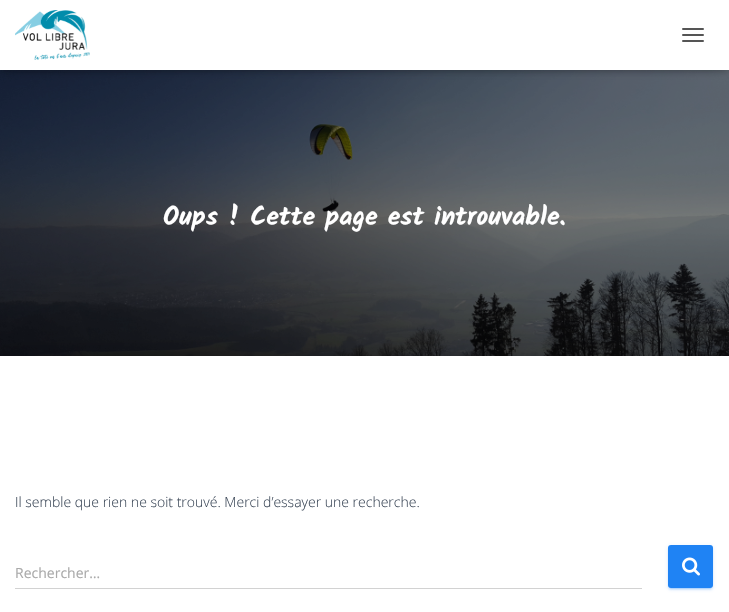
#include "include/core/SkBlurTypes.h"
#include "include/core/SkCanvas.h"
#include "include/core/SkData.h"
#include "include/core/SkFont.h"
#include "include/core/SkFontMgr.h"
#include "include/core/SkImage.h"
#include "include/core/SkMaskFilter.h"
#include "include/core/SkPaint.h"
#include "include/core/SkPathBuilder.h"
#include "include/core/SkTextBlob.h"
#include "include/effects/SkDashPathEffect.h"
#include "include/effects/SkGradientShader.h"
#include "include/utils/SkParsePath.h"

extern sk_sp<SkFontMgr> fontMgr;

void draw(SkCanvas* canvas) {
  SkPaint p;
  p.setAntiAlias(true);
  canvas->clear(SK_ColorWHITE);
  canvas->drawImageRect(SkImages::DeferredFromEncodedData(SkData::MakeFromFileName("images/2.png")), SkRect::MakeLTRB(0, 70, 729, 356), SkSamplingOptions());
  p.setColor(SkColorSetARGB(26, 0, 0, 0));
  p.setMaskFilter(SkMaskFilter::MakeBlur(kNormal_SkBlurStyle, 2.5f));
  canvas->drawRect(SkRect::MakeLTRB(2, 6, 727, 72), p);
  p.setMaskFilter(nullptr);
  p.setColor(SkColorSetARGB(31, 0, 0, 0));
  p.setMaskFilter(SkMaskFilter::MakeBlur(kNormal_SkBlurStyle, 5));
  canvas->drawRect(SkRect::MakeLTRB(0, 1, 729, 71), p);
  p.setMaskFilter(nullptr);
  p.setColor(SkColorSetARGB(107, 0, 0, 0));
  p.setMaskFilter(SkMaskFilter::MakeBlur(kNormal_SkBlurStyle, 5));
  canvas->drawRect(SkRect::MakeLTRB(6, 7, 723, 65), p);
  p.setMaskFilter(nullptr);
  p.setColor(SK_ColorWHITE);
  canvas->drawRect(SkRect::MakeLTRB(0, 0, 729, 70), p);
  canvas->drawImageRect(SkImages::DeferredFromEncodedData(SkData::MakeFromFileName("images/1.png")), SkRect::MakeLTRB(15, 10, 90, 60), SkSamplingOptions());
  p.setColor(SkColorSetRGB(85, 85, 85));
  canvas->drawRoundRect(SkRect::MakeLTRB(682, 28, 704, 30), 1, 1, p);
  canvas->drawRoundRect(SkRect::MakeLTRB(682, 34, 704, 36), 1, 1, p);
  canvas->drawRoundRect(SkRect::MakeLTRB(682, 40, 704, 42), 1, 1, p);
  p.setColor(SkColorSetARGB(31, 0, 0, 0));
  p.setMaskFilter(SkMaskFilter::MakeBlur(kNormal_SkBlurStyle, 15));
  canvas->drawRect(SkRect::MakeLTRB(-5, 357, 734, 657), p);
  p.setMaskFilter(nullptr);
  p.setColor(SK_ColorWHITE);
  canvas->drawRect(SkRect::MakeLTRB(0, 356, 729, 612), p);
  p.setColor(SkColorSetRGB(210, 210, 210));
  canvas->drawRect(SkRect::MakeLTRB(15, 588, 642, 589), p);
  p.setColor(SkColorSetARGB(31, 31, 131, 244));
  p.setMaskFilter(SkMaskFilter::MakeBlur(kNormal_SkBlurStyle, 2.5f));
  canvas->drawRoundRect(SkRect::MakeLTRB(668, 546, 713, 589), 3, 3, p);
  p.setMaskFilter(nullptr);
  p.setColor(SkColorSetARGB(51, 31, 131, 244));
  p.setMaskFilter(SkMaskFilter::MakeBlur(kNormal_SkBlurStyle, 0.5f));
  canvas->drawRoundRect(SkRect::MakeLTRB(670, 550, 711, 589), 1, 1, p);
  p.setMaskFilter(nullptr);
  p.setColor(SkColorSetARGB(36, 31, 131, 244));
  p.setMaskFilter(SkMaskFilter::MakeBlur(kNormal_SkBlurStyle, 1));
  canvas->drawRoundRect(SkRect::MakeLTRB(668, 547, 713, 590), 3, 3, p);
  p.setMaskFilter(nullptr);
  p.setColor(SkColorSetRGB(31, 131, 244));
  canvas->drawRoundRect(SkRect::MakeLTRB(668, 545, 713, 588), 3, 3, p);
  canvas->drawImageRect(SkImages::DeferredFromEncodedData(SkData::MakeFromFileName("images/3.png")), SkRect::MakeLTRB(682, 557, 700, 576), SkSamplingOptions());
  SkFont font1(fontMgr->matchFamilyStyle("Kalam", SkFontStyle::Bold()), 26);
  font1.setSubpixel(true);
  p.setColor(SK_ColorWHITE);
  canvas->drawString("Oups ! Cette page est introuvable.", 163, 225, font1, p);
  SkFont font2(fontMgr->matchFamilyStyle("Open Sans", SkFontStyle(300, SkFontStyle::kNormal_Width, SkFontStyle::kUpright_Slant)), 14);
  font2.setSubpixel(true);
  p.setColor(SkColorSetRGB(60, 72, 88));
  canvas->drawString("Il semble que rien ne soit trouvé. Merci d’essayer une recherche.", 15, 507, font2, p);
  SkFont font3(fontMgr->matchFamilyStyle("Open Sans", SkFontStyle::Normal()), 14);
  font3.setSubpixel(true);
  p.setColor(SkColorSetRGB(170, 170, 170));
  canvas->drawString("Rechercher…", 15, 578, font3, p);
}
